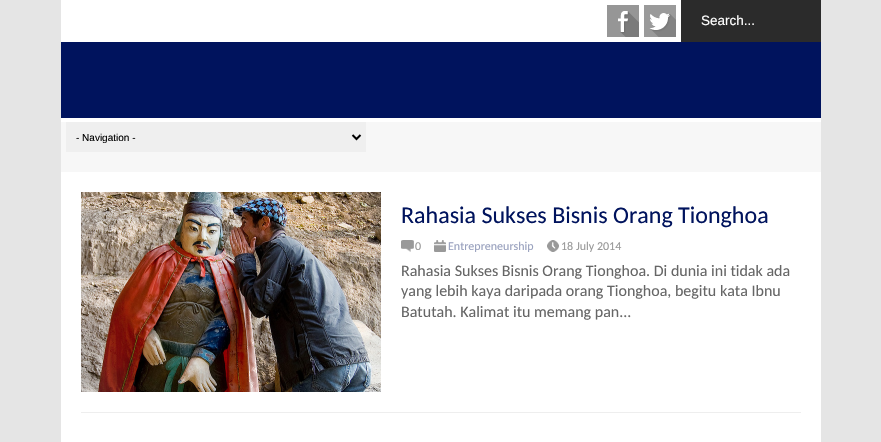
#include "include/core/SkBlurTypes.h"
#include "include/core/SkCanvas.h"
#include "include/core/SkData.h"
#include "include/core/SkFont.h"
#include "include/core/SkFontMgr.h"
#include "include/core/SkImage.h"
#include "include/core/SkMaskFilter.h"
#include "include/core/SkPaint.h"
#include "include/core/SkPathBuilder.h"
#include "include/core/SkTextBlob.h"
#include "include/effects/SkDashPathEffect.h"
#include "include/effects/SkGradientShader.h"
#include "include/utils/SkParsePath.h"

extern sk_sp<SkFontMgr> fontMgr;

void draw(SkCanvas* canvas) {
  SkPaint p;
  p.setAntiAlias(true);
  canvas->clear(SkColorSetRGB(229, 229, 229));
  p.setColor(SK_ColorWHITE);
  canvas->drawRect(SkRect::MakeLTRB(61, 0, 821, 442), p);
  canvas->drawImageRect(SkImages::DeferredFromEncodedData(SkData::MakeFromFileName("images/1.png")), SkRect::MakeLTRB(607, 5, 639, 37), SkSamplingOptions());
  canvas->drawImageRect(SkImages::DeferredFromEncodedData(SkData::MakeFromFileName("images/2.png")), SkRect::MakeLTRB(644, 5, 676, 37), SkSamplingOptions());
  p.setColor(SkColorSetRGB(43, 43, 43));
  canvas->drawRect(SkRect::MakeLTRB(681, 0, 821, 42), p);
  p.setColor(SkColorSetRGB(0, 19, 93));
  canvas->drawRect(SkRect::MakeLTRB(61, 42, 821, 118), p);
  p.setColor(SkColorSetRGB(247, 247, 247));
  canvas->drawRect(SkRect::MakeLTRB(61, 122, 821, 172), p);
  p.setColor(SkColorSetRGB(239, 239, 239));
  canvas->drawRect(SkRect::MakeLTRB(66, 122, 366, 152), p);
  p.setStyle(SkPaint::kStroke_Style);
  p.setStrokeWidth(2);
  p.setColor(SK_ColorBLACK);
  canvas->drawPath(SkPathBuilder().moveTo(352.5f, 135).lineTo(356.5f, 139).lineTo(360.5f, 135).detach(), p);
  p.setStyle(SkPaint::kFill_Style);
  p.setColor(SkColorSetRGB(238, 238, 238));
  canvas->drawRect(SkRect::MakeLTRB(81, 412, 801, 413), p);
  canvas->drawImageRect(SkImages::DeferredFromEncodedData(SkData::MakeFromFileName("images/3.png")), SkRect::MakeLTRB(81, 192, 381, 392), SkSamplingOptions());
  canvas->drawImageRect(SkImages::DeferredFromEncodedData(SkData::MakeFromFileName("images/4.png")), SkRect::MakeLTRB(401, 240, 414, 252), SkSamplingOptions());
  canvas->drawImageRect(SkImages::DeferredFromEncodedData(SkData::MakeFromFileName("images/5.png")), SkRect::MakeLTRB(434, 240, 446, 252), SkSamplingOptions());
  canvas->drawImageRect(SkImages::DeferredFromEncodedData(SkData::MakeFromFileName("images/6.png")), SkRect::MakeLTRB(547, 240, 559, 252), SkSamplingOptions());
  SkFont font1(fontMgr->matchFamilyStyle("Liberation Sans", SkFontStyle::Normal()), 13.5f);
  font1.setSubpixel(true);
  p.setColor(SK_ColorWHITE);
  canvas->drawString("Search...", 701, 25, font1, p);
  SkFont font2(fontMgr->matchFamilyStyle("Liberation Sans", SkFontStyle::Normal()), 10);
  font2.setSubpixel(true);
  p.setColor(SK_ColorBLACK);
  canvas->drawString("- Navigation -", 76, 141, font2, p);
  SkFont font3(fontMgr->matchFamilyStyle("Carlito", SkFontStyle::Normal()), 24);
  font3.setSubpixel(true);
  p.setColor(SkColorSetRGB(0, 19, 93));
  canvas->drawString("Rahasia Sukses Bisnis Orang Tionghoa", 401, 223, font3, p);
  SkFont font4(fontMgr->matchFamilyStyle("Carlito", SkFontStyle::Normal()), 12);
  font4.setSubpixel(true);
  p.setColor(SkColorSetRGB(153, 153, 153));
  canvas->drawString("0", 415, 250, font4, p);
  p.setColor(SkColorSetRGB(153, 161, 190));
  canvas->drawString("Entrepreneurship", 448, 250, font4, p);
  p.setColor(SkColorSetRGB(153, 153, 153));
  canvas->drawString("18 July 2014", 561, 250, font4, p);
  SkFont font5(fontMgr->matchFamilyStyle("Carlito", SkFontStyle::Normal()), 16);
  font5.setSubpixel(true);
  p.setColor(SkColorSetRGB(102, 102, 102));
  canvas->drawString("Rahasia Sukses Bisnis Orang Tionghoa. Di dunia ini tidak ada", 401, 276, font5, p);
  canvas->drawString("yang lebih kaya daripada orang Tionghoa, begitu kata Ibnu", 401, 296, font5, p);
  canvas->drawString("Batutah. Kalimat itu memang pan...", 401, 317, font5, p);
}
